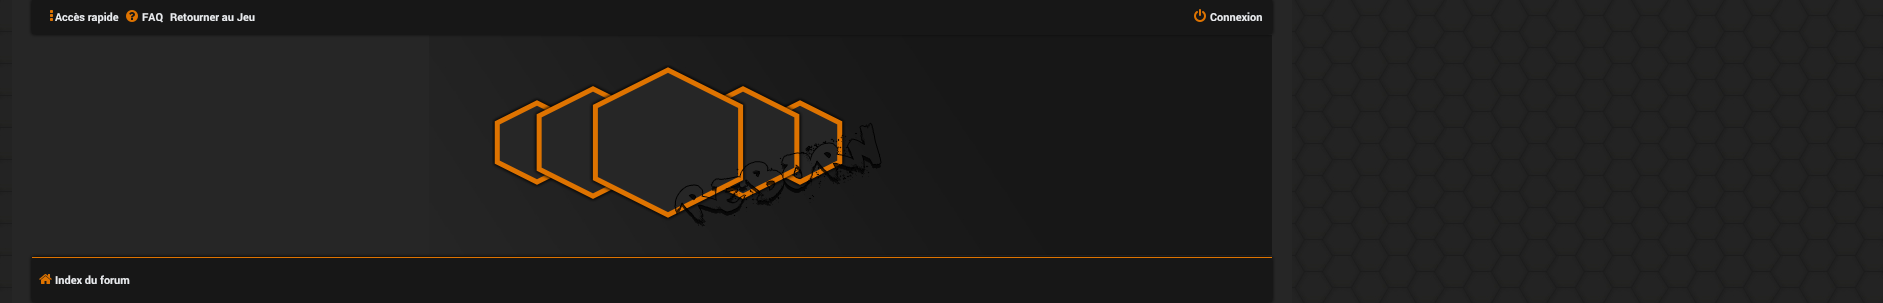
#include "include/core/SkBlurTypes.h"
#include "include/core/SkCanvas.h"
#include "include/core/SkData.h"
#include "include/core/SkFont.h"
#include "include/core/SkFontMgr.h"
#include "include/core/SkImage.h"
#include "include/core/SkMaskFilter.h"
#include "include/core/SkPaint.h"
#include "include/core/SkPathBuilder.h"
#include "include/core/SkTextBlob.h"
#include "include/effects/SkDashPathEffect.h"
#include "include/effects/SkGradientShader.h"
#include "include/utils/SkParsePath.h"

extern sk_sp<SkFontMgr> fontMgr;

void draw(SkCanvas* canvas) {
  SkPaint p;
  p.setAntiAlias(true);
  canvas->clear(SK_ColorWHITE);
  canvas->drawImageRect(SkImages::DeferredFromEncodedData(SkData::MakeFromFileName("images/1.png")), SkRect::MakeLTRB(0, 0, 1883, 303), SkSamplingOptions());
  p.setColor(SkColorSetRGB(38, 38, 38));
  canvas->drawRect(SkRect::MakeLTRB(12, 0, 1292, 303), p);
  canvas->drawImageRect(SkImages::DeferredFromEncodedData(SkData::MakeFromFileName("images/5.png")), SkRect::MakeLTRB(429, 35, 1272, 255), SkSamplingOptions());
  p.setColor(SK_ColorBLACK);
  p.setMaskFilter(SkMaskFilter::MakeBlur(kNormal_SkBlurStyle, 2));
  canvas->drawRect(SkRect::MakeLTRB(32, 0, 1272, 34), p);
  p.setMaskFilter(nullptr);
  p.setColor(SkColorSetRGB(23, 23, 23));
  canvas->drawRect(SkRect::MakeLTRB(32, 0, 1272, 34), p);
  canvas->drawImageRect(SkImages::DeferredFromEncodedData(SkData::MakeFromFileName("images/2.png")), SkRect::MakeLTRB(50, 10, 53, 21), SkSamplingOptions());
  canvas->drawImageRect(SkImages::DeferredFromEncodedData(SkData::MakeFromFileName("images/3.png")), SkRect::MakeLTRB(126, 10, 138, 22), SkSamplingOptions());
  canvas->drawImageRect(SkImages::DeferredFromEncodedData(SkData::MakeFromFileName("images/4.png")), SkRect::MakeLTRB(1194, 9, 1206, 22), SkSamplingOptions());
  canvas->drawImageRect(SkImages::DeferredFromEncodedData(SkData::MakeFromFileName("images/6.png")), SkRect::MakeLTRB(492, 65, 882, 227), SkSamplingOptions());
  p.setColor(SK_ColorBLACK);
  p.setMaskFilter(SkMaskFilter::MakeBlur(kNormal_SkBlurStyle, 2));
  canvas->drawRect(SkRect::MakeLTRB(32, 257, 1272, 302), p);
  p.setMaskFilter(nullptr);
  p.setColor(SkColorSetRGB(23, 23, 23));
  canvas->drawRect(SkRect::MakeLTRB(32, 258, 1272, 302), p);
  p.setColor(SkColorSetRGB(222, 115, 0));
  canvas->drawRect(SkRect::MakeLTRB(32, 257, 1272, 258), p);
  canvas->drawImageRect(SkImages::DeferredFromEncodedData(SkData::MakeFromFileName("images/7.png")), SkRect::MakeLTRB(39, 274, 52, 284), SkSamplingOptions());
  SkFont font1(fontMgr->matchFamilyStyle("Roboto", SkFontStyle::Bold()), 11);
  font1.setSubpixel(true);
  p.setColor(SkColorSetRGB(233, 235, 238));
  canvas->drawString("Accès rapide", 55, 21, font1, p);
  canvas->drawString("FAQ", 142, 21, font1, p);
  canvas->drawString("Retourner au Jeu", 170, 21, font1, p);
  canvas->drawString("Connexion", 1210, 21, font1, p);
  canvas->drawString("Index du forum", 55, 284, font1, p);
}
